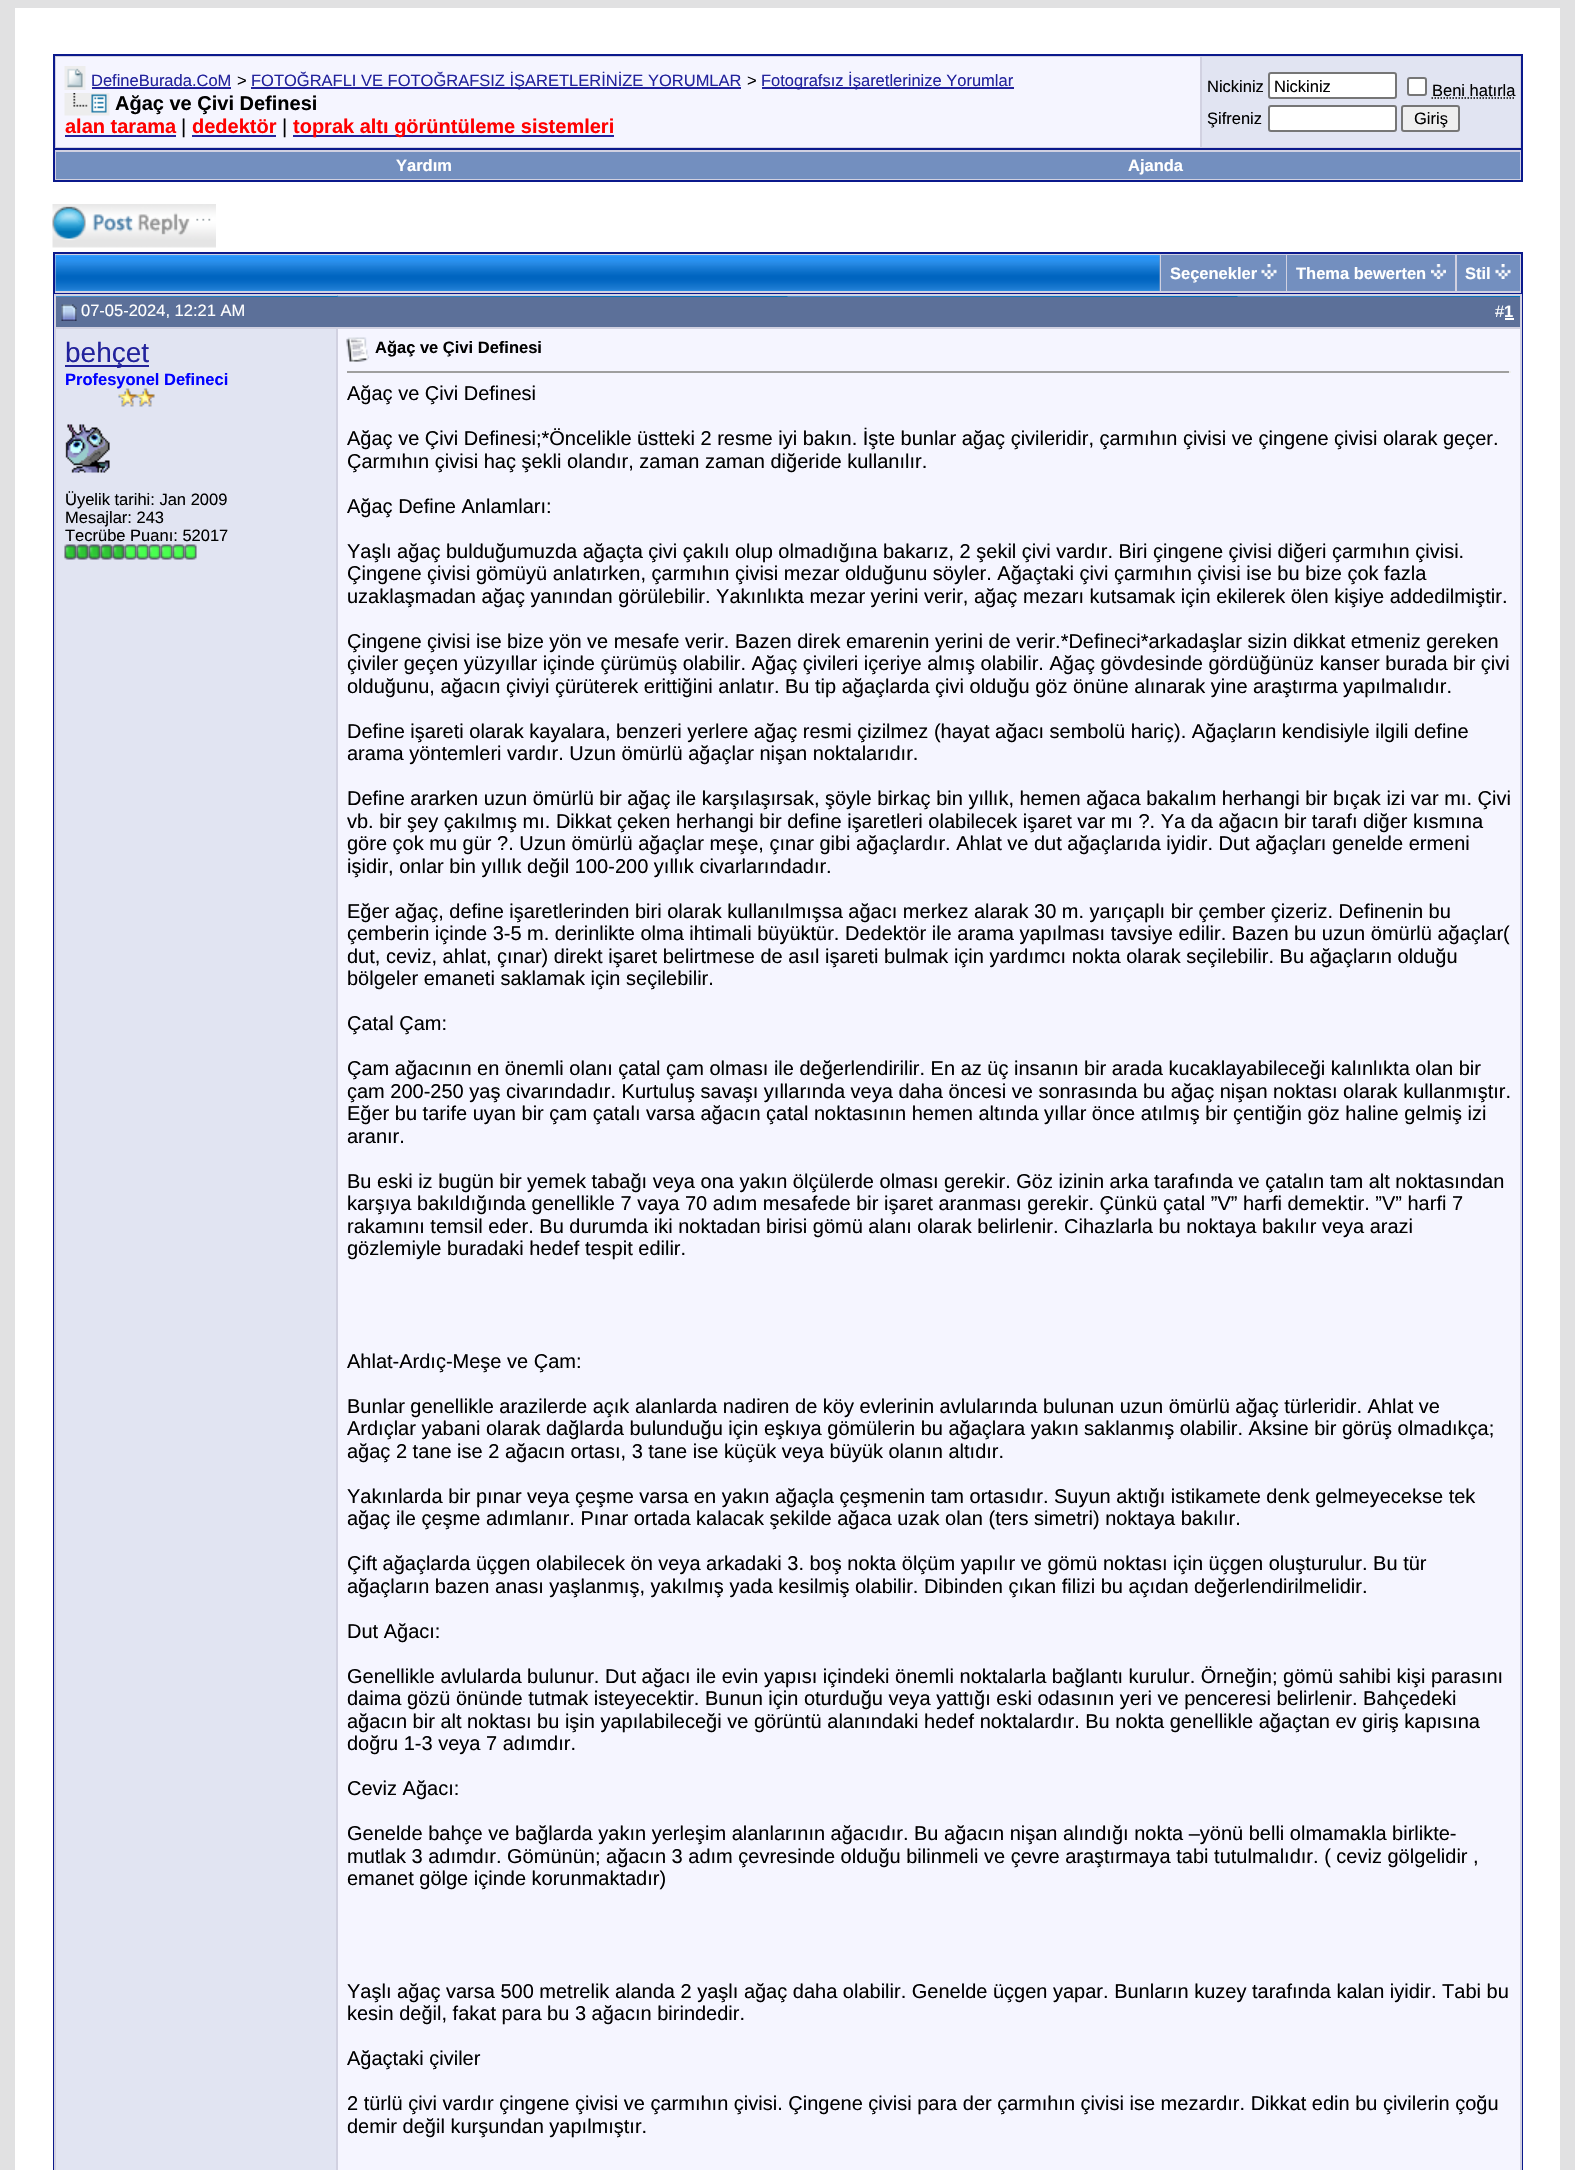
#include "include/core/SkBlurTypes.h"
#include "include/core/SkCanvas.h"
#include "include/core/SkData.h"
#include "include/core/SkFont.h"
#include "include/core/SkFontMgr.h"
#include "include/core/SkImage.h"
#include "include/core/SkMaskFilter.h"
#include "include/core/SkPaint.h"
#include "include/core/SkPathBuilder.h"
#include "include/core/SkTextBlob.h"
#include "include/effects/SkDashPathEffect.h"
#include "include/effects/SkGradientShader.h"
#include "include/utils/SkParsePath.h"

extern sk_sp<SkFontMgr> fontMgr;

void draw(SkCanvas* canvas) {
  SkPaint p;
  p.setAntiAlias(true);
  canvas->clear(SkColorSetRGB(225, 225, 226));
  p.setColor(SK_ColorWHITE);
  canvas->drawRect(SkRect::MakeLTRB(15, 8, 1560, 2170), p);
  p.setColor(SkColorSetRGB(209, 209, 225));
  canvas->drawRect(SkRect::MakeLTRB(54, 55, 1522, 149), p);
  p.setStyle(SkPaint::kStroke_Style);
  p.setStrokeWidth(2);
  p.setColor(SkColorSetRGB(11, 25, 140));
  canvas->drawRect(SkRect::MakeLTRB(54, 55, 1522, 149), p);
  p.setStyle(SkPaint::kFill_Style);
  p.setColor(SkColorSetRGB(245, 245, 255));
  canvas->drawRect(SkRect::MakeLTRB(56, 57, 1200, 147), p);
  canvas->drawImageRect(SkImages::DeferredFromEncodedData(SkData::MakeFromFileName("images/1.png")), SkRect::MakeLTRB(64, 66, 86, 90), SkSamplingOptions());
  p.setColor(SkColorSetRGB(34, 34, 156));
  canvas->drawRect(SkRect::MakeLTRB(92, 87, 231, 89), p);
  canvas->drawRect(SkRect::MakeLTRB(251, 87, 741, 89), p);
  canvas->drawRect(SkRect::MakeLTRB(762, 87, 1014, 89), p);
  canvas->drawImageRect(SkImages::DeferredFromEncodedData(SkData::MakeFromFileName("images/2.png")), SkRect::MakeLTRB(64, 93, 110, 116), SkSamplingOptions());
  canvas->drawRect(SkRect::MakeLTRB(65, 135, 176, 137), p);
  canvas->drawRect(SkRect::MakeLTRB(192, 135, 276, 137), p);
  canvas->drawRect(SkRect::MakeLTRB(293, 135, 614, 137), p);
  p.setColor(SkColorSetRGB(225, 228, 242));
  canvas->drawRect(SkRect::MakeLTRB(1202, 57, 1520, 147), p);
  p.setColor(SK_ColorWHITE);
  canvas->drawRoundRect(SkRect::MakeLTRB(1269, 73, 1396, 98), 2, 2, p);
  p.setStyle(SkPaint::kStroke_Style);
  p.setColor(SkColorSetRGB(118, 118, 118));
  canvas->drawRoundRect(SkRect::MakeLTRB(1269, 73, 1396, 98), 2, 2, p);
  p.setStyle(SkPaint::kFill_Style);
  p.setColor(SK_ColorWHITE);
  canvas->drawRoundRect(SkRect::MakeLTRB(1408, 78, 1426, 95), 2, 2, p);
  p.setStyle(SkPaint::kStroke_Style);
  p.setColor(SkColorSetRGB(118, 118, 118));
  canvas->drawRoundRect(SkRect::MakeLTRB(1408, 78, 1426, 95), 2, 2, p);
  p.setStrokeWidth(1.5f);
  p.setColor(SK_ColorBLACK);
  p.setPathEffect(SkDashPathEffect::Make({{1.5f, 1.5f}}, 0));
  canvas->drawPath(SkPathBuilder().moveTo(1431.5f, 98).lineTo(1515, 98).detach(), p);
  p.setPathEffect(nullptr);
  p.setStyle(SkPaint::kFill_Style);
  p.setColor(SK_ColorWHITE);
  canvas->drawRoundRect(SkRect::MakeLTRB(1269, 106, 1396, 131), 2, 2, p);
  p.setStyle(SkPaint::kStroke_Style);
  p.setStrokeWidth(2);
  p.setColor(SkColorSetRGB(118, 118, 118));
  canvas->drawRoundRect(SkRect::MakeLTRB(1269, 106, 1396, 131), 2, 2, p);
  p.setStyle(SkPaint::kFill_Style);
  p.setColor(SkColorSetRGB(239, 239, 239));
  canvas->drawRoundRect(SkRect::MakeLTRB(1402, 106, 1459, 131), 2, 2, p);
  p.setStyle(SkPaint::kStroke_Style);
  p.setColor(SkColorSetRGB(118, 118, 118));
  canvas->drawRoundRect(SkRect::MakeLTRB(1402, 106, 1459, 131), 2, 2, p);
  p.setStyle(SkPaint::kFill_Style);
  p.setColor(SkColorSetRGB(209, 209, 225));
  canvas->drawRect(SkRect::MakeLTRB(55, 150, 1521, 180), p);
  p.setColor(SkColorSetRGB(11, 25, 140));
  canvas->drawRect(SkRect::MakeLTRB(1521, 150, 1523, 182), p);
  canvas->drawRect(SkRect::MakeLTRB(53, 180, 1523, 182), p);
  canvas->drawRect(SkRect::MakeLTRB(53, 150, 55, 182), p);
  p.setColor(SkColorSetRGB(115, 143, 191));
  canvas->drawRect(SkRect::MakeLTRB(56, 152, 1520, 179), p);
  canvas->drawImageRect(SkImages::DeferredFromEncodedData(SkData::MakeFromFileName("images/3.png")), SkRect::MakeLTRB(52, 204, 216, 248), SkSamplingOptions());
  p.setColor(SkColorSetRGB(209, 209, 225));
  canvas->drawRect(SkRect::MakeLTRB(55, 254, 1521, 293), p);
  p.setColor(SkColorSetRGB(11, 25, 140));
  canvas->drawRect(SkRect::MakeLTRB(53, 252, 1523, 254), p);
  canvas->drawRect(SkRect::MakeLTRB(1521, 252, 1523, 293), p);
  canvas->drawRect(SkRect::MakeLTRB(53, 252, 55, 293), p);
  p.setColor(SkColorSetRGB(134, 155, 191));
  canvas->drawRect(SkRect::MakeLTRB(1159, 255, 1160, 291), p);
  canvas->drawImageRect(SkImages::DeferredFromEncodedData(SkData::MakeFromFileName("images/4.png")), SkRect::MakeLTRB(55, 255, 1160, 291), SkSamplingOptions());
  p.setColor(SkColorSetRGB(115, 143, 191));
  canvas->drawRect(SkRect::MakeLTRB(1161, 255, 1286, 291), p);
  canvas->drawImageRect(SkImages::DeferredFromEncodedData(SkData::MakeFromFileName("images/5.png")), SkRect::MakeLTRB(1261, 264, 1277, 279), SkSamplingOptions());
  canvas->drawRect(SkRect::MakeLTRB(1287, 255, 1455, 291), p);
  canvas->drawImageRect(SkImages::DeferredFromEncodedData(SkData::MakeFromFileName("images/6.png")), SkRect::MakeLTRB(1431, 264, 1446, 279), SkSamplingOptions());
  canvas->drawRect(SkRect::MakeLTRB(1457, 255, 1520, 291), p);
  canvas->drawImageRect(SkImages::DeferredFromEncodedData(SkData::MakeFromFileName("images/7.png")), SkRect::MakeLTRB(1495, 264, 1511, 279), SkSamplingOptions());
  p.setStyle(SkPaint::kStroke_Style);
  p.setColor(SkColorSetRGB(11, 25, 140));
  canvas->drawRect(SkRect::MakeLTRB(54, 294, 1522, 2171), p);
  p.setStyle(SkPaint::kFill_Style);
  p.setColor(SkColorSetRGB(92, 112, 153));
  canvas->drawRect(SkRect::MakeLTRB(56, 296, 338, 327), p);
  canvas->drawImageRect(SkImages::DeferredFromEncodedData(SkData::MakeFromFileName("images/8.png")), SkRect::MakeLTRB(56, 296, 338, 297), SkSamplingOptions());
  p.setColor(SkColorSetRGB(209, 209, 225));
  canvas->drawRect(SkRect::MakeLTRB(54, 294, 338, 296), p);
  canvas->drawRect(SkRect::MakeLTRB(54, 327, 338, 329), p);
  canvas->drawRect(SkRect::MakeLTRB(54, 294, 56, 2170), p);
  canvas->drawImageRect(SkImages::DeferredFromEncodedData(SkData::MakeFromFileName("images/9.png")), SkRect::MakeLTRB(61, 304, 77, 321), SkSamplingOptions());
  p.setColor(SkColorSetRGB(92, 112, 153));
  canvas->drawRect(SkRect::MakeLTRB(338, 297, 1520, 327), p);
  canvas->drawImageRect(SkImages::DeferredFromEncodedData(SkData::MakeFromFileName("images/10.png")), SkRect::MakeLTRB(337, 295, 1520, 297), SkSamplingOptions());
  p.setColor(SkColorSetRGB(209, 209, 225));
  canvas->drawRect(SkRect::MakeLTRB(338, 294, 1521, 296), p);
  canvas->drawRect(SkRect::MakeLTRB(1520, 294, 1522, 2170), p);
  canvas->drawRect(SkRect::MakeLTRB(338, 327, 1521, 329), p);
  p.setColor(SK_ColorWHITE);
  canvas->drawRect(SkRect::MakeLTRB(1505, 318, 1514, 320), p);
  p.setColor(SkColorSetRGB(225, 228, 242));
  canvas->drawRect(SkRect::MakeLTRB(56, 329, 336, 2170), p);
  p.setColor(SkColorSetRGB(209, 209, 225));
  canvas->drawRect(SkRect::MakeLTRB(336, 329, 338, 2170), p);
  p.setColor(SkColorSetRGB(34, 34, 156));
  canvas->drawRect(SkRect::MakeLTRB(65, 365, 149, 367), p);
  canvas->drawImageRect(SkImages::DeferredFromEncodedData(SkData::MakeFromFileName("images/12.png")), SkRect::MakeLTRB(65, 424, 110, 473), SkSamplingOptions());
  canvas->drawImageRect(SkImages::DeferredFromEncodedData(SkData::MakeFromFileName("images/13.png")), SkRect::MakeLTRB(64, 544, 77, 560), SkSamplingOptions());
  canvas->drawImageRect(SkImages::DeferredFromEncodedData(SkData::MakeFromFileName("images/14.png")), SkRect::MakeLTRB(76, 544, 89, 560), SkSamplingOptions());
  canvas->drawImageRect(SkImages::DeferredFromEncodedData(SkData::MakeFromFileName("images/14.png")), SkRect::MakeLTRB(88, 544, 101, 560), SkSamplingOptions());
  canvas->drawImageRect(SkImages::DeferredFromEncodedData(SkData::MakeFromFileName("images/14.png")), SkRect::MakeLTRB(100, 544, 113, 560), SkSamplingOptions());
  canvas->drawImageRect(SkImages::DeferredFromEncodedData(SkData::MakeFromFileName("images/14.png")), SkRect::MakeLTRB(112, 544, 125, 560), SkSamplingOptions());
  canvas->drawImageRect(SkImages::DeferredFromEncodedData(SkData::MakeFromFileName("images/15.png")), SkRect::MakeLTRB(124, 544, 137, 560), SkSamplingOptions());
  canvas->drawImageRect(SkImages::DeferredFromEncodedData(SkData::MakeFromFileName("images/16.png")), SkRect::MakeLTRB(136, 544, 149, 560), SkSamplingOptions());
  canvas->drawImageRect(SkImages::DeferredFromEncodedData(SkData::MakeFromFileName("images/16.png")), SkRect::MakeLTRB(148, 544, 161, 560), SkSamplingOptions());
  canvas->drawImageRect(SkImages::DeferredFromEncodedData(SkData::MakeFromFileName("images/16.png")), SkRect::MakeLTRB(160, 544, 173, 560), SkSamplingOptions());
  canvas->drawImageRect(SkImages::DeferredFromEncodedData(SkData::MakeFromFileName("images/16.png")), SkRect::MakeLTRB(172, 544, 185, 560), SkSamplingOptions());
  canvas->drawImageRect(SkImages::DeferredFromEncodedData(SkData::MakeFromFileName("images/16.png")), SkRect::MakeLTRB(184, 544, 197, 560), SkSamplingOptions());
  p.setColor(SkColorSetRGB(245, 245, 255));
  canvas->drawRect(SkRect::MakeLTRB(338, 329, 1520, 2170), p);
  canvas->drawImageRect(SkImages::DeferredFromEncodedData(SkData::MakeFromFileName("images/17.png")), SkRect::MakeLTRB(346, 337, 370, 362), SkSamplingOptions());
  p.setColor(SkColorSetRGB(159, 159, 159));
  canvas->drawRect(SkRect::MakeLTRB(347, 371, 1511, 373), p);
  p.setColor(SkColorSetRGB(238, 238, 238));
  canvas->drawRect(SkRect::MakeLTRB(1509, 371, 1511, 373), p);
  SkFont font1(fontMgr->matchFamilyStyle("Liberation Sans", SkFontStyle::Normal()), 16.5f);
  font1.setSubpixel(true);
  p.setColor(SkColorSetRGB(34, 34, 156));
  canvas->drawString("DefineBurada.CoM", 91, 86, font1, p);
  p.setColor(SK_ColorBLACK);
  canvas->drawString(">", 237, 86, font1, p);
  p.setColor(SkColorSetRGB(34, 34, 156));
  canvas->drawString("FOTOĞRAFLI VE FOTOĞRAFSIZ İŞARETLERİNİZE YORUMLAR", 251, 86, font1, p);
  p.setColor(SK_ColorBLACK);
  canvas->drawString(">", 747, 86, font1, p);
  p.setColor(SkColorSetRGB(34, 34, 156));
  canvas->drawString("Fotografsız İşaretlerinize Yorumlar", 761, 86, font1, p);
  SkFont font2(fontMgr->matchFamilyStyle("Liberation Sans", SkFontStyle::Bold()), 20);
  font2.setSubpixel(true);
  p.setColor(SK_ColorBLACK);
  canvas->drawString("Ağaç ve Çivi Definesi", 115, 110, font2, p);
  p.setColor(SkColorSetRGB(255, 0, 0));
  canvas->drawString("alan tarama", 65, 133, font2, p);
  SkFont font3(fontMgr->matchFamilyStyle("Liberation Sans", SkFontStyle::Normal()), 20);
  font3.setSubpixel(true);
  p.setColor(SK_ColorBLACK);
  canvas->drawString("|", 181, 133, font3, p);
  p.setColor(SkColorSetRGB(255, 0, 0));
  canvas->drawString("dedektör", 192, 133, font2, p);
  p.setColor(SK_ColorBLACK);
  canvas->drawString("|", 282, 133, font3, p);
  p.setColor(SkColorSetRGB(255, 0, 0));
  canvas->drawString("toprak altı görüntüleme sistemleri", 293, 133, font2, p);
  p.setColor(SK_ColorBLACK);
  canvas->drawString("Nickiniz", 1207, 92, font1, p);
  canvas->drawString("Nickiniz", 1274, 92, font1, p);
  canvas->drawString("Beni hatırla", 1432, 96, font1, p);
  canvas->drawString("Şifreniz", 1207, 124, font1, p);
  canvas->drawString("Giriş", 1414, 124, font1, p);
  SkFont font4(fontMgr->matchFamilyStyle("Liberation Sans", SkFontStyle::Bold()), 16.5f);
  font4.setSubpixel(true);
  p.setColor(SK_ColorWHITE);
  canvas->drawString("Yardım", 396, 171, font4, p);
  canvas->drawString("Ajanda", 1128, 171, font4, p);
  canvas->drawString("Seçenekler", 1170, 279, font4, p);
  canvas->drawString("Thema bewerten", 1296, 279, font4, p);
  canvas->drawString("Stil", 1465, 279, font4, p);
  canvas->drawString("07-05-2024, 12:21 AM", 81, 316, font1, p);
  canvas->drawString("#", 1495, 317, font1, p);
  canvas->drawString("1", 1504, 317, font4, p);
  SkFont font5(fontMgr->matchFamilyStyle("Liberation Sans", SkFontStyle::Normal()), 28);
  font5.setSubpixel(true);
  p.setColor(SkColorSetRGB(34, 34, 156));
  canvas->drawString("behçet", 65, 362, font5, p);
  p.setColor(SkColorSetRGB(0, 0, 255));
  canvas->drawString("Profesyonel Defineci", 65, 385, font4, p);
  canvas->drawImageRect(SkImages::DeferredFromEncodedData(SkData::MakeFromFileName("images/11.png")), SkRect::MakeLTRB(118, 388, 155, 407), SkSamplingOptions());
  p.setColor(SK_ColorBLACK);
  canvas->drawString("Üyelik tarihi: Jan 2009", 65, 505, font1, p);
  canvas->drawString("Mesajlar: 243", 65, 523, font1, p);
  canvas->drawString("Tecrübe Puanı: 52017", 65, 541, font1, p);
  canvas->drawString("Ağaç ve Çivi Definesi", 375, 353, font4, p);
  canvas->drawString("Ağaç ve Çivi Definesi", 347, 400, font3, p);
  canvas->drawString("Ağaç ve Çivi Definesi;*Öncelikle üstteki 2 resme iyi bakın. İşte bunlar ağaç çivileridir, çarmıhın çivisi ve çingene çivisi olarak geçer.", 347, 445, font3, p);
  canvas->drawString("Çarmıhın çivisi haç şekli olandır, zaman zaman diğeride kullanılır.", 347, 468, font3, p);
  canvas->drawString("Ağaç Define Anlamları:", 347, 513, font3, p);
  canvas->drawString("Yaşlı ağaç bulduğumuzda ağaçta çivi çakılı olup olmadığına bakarız, 2 şekil çivi vardır. Biri çingene çivisi diğeri çarmıhın çivisi.", 347, 558, font3, p);
  canvas->drawString("Çingene çivisi gömüyü anlatırken, çarmıhın çivisi mezar olduğunu söyler. Ağaçtaki çivi çarmıhın çivisi ise bu bize çok fazla", 347, 580, font3, p);
  canvas->drawString("uzaklaşmadan ağaç yanından görülebilir. Yakınlıkta mezar yerini verir, ağaç mezarı kutsamak için ekilerek ölen kişiye addedilmiştir.", 347, 603, font3, p);
  canvas->drawString("Çingene çivisi ise bize yön ve mesafe verir. Bazen direk emarenin yerini de verir.*Defineci*arkadaşlar sizin dikkat etmeniz gereken", 347, 648, font3, p);
  canvas->drawString("çiviler geçen yüzyıllar içinde çürümüş olabilir. Ağaç çivileri içeriye almış olabilir. Ağaç gövdesinde gördüğünüz kanser burada bir çivi", 347, 670, font3, p);
  canvas->drawString("olduğunu, ağacın çiviyi çürüterek erittiğini anlatır. Bu tip ağaçlarda çivi olduğu göz önüne alınarak yine araştırma yapılmalıdır.", 347, 693, font3, p);
  canvas->drawString("Define işareti olarak kayalara, benzeri yerlere ağaç resmi çizilmez (hayat ağacı sembolü hariç). Ağaçların kendisiyle ilgili define", 347, 738, font3, p);
  canvas->drawString("arama yöntemleri vardır. Uzun ömürlü ağaçlar nişan noktalarıdır.", 347, 760, font3, p);
  canvas->drawString("Define ararken uzun ömürlü bir ağaç ile karşılaşırsak, şöyle birkaç bin yıllık, hemen ağaca bakalım herhangi bir bıçak izi var mı. Çivi", 347, 805, font3, p);
  canvas->drawString("vb. bir şey çakılmış mı. Dikkat çeken herhangi bir define işaretleri olabilecek işaret var mı ?. Ya da ağacın bir tarafı diğer kısmına", 347, 828, font3, p);
  canvas->drawString("göre çok mu gür ?. Uzun ömürlü ağaçlar meşe, çınar gibi ağaçlardır. Ahlat ve dut ağaçlarıda iyidir. Dut ağaçları genelde ermeni", 347, 850, font3, p);
  canvas->drawString("işidir, onlar bin yıllık değil 100-200 yıllık civarlarındadır.", 347, 873, font3, p);
  canvas->drawString("Eğer ağaç, define işaretlerinden biri olarak kullanılmışsa ağacı merkez alarak 30 m. yarıçaplı bir çember çizeriz. Definenin bu", 347, 918, font3, p);
  canvas->drawString("çemberin içinde 3-5 m. derinlikte olma ihtimali büyüktür. Dedektör ile arama yapılması tavsiye edilir. Bazen bu uzun ömürlü ağaçlar(", 347, 940, font3, p);
  canvas->drawString("dut, ceviz, ahlat, çınar) direkt işaret belirtmese de asıl işareti bulmak için yardımcı nokta olarak seçilebilir. Bu ağaçların olduğu", 347, 963, font3, p);
  canvas->drawString("bölgeler emaneti saklamak için seçilebilir.", 347, 985, font3, p);
  canvas->drawString("Çatal Çam:", 347, 1030, font3, p);
  canvas->drawString("Çam ağacının en önemli olanı çatal çam olması ile değerlendirilir. En az üç insanın bir arada kucaklayabileceği kalınlıkta olan bir", 347, 1075, font3, p);
  canvas->drawString("çam 200-250 yaş civarındadır. Kurtuluş savaşı yıllarında veya daha öncesi ve sonrasında bu ağaç nişan noktası olarak kullanmıştır.", 347, 1098, font3, p);
  canvas->drawString("Eğer bu tarife uyan bir çam çatalı varsa ağacın çatal noktasının hemen altında yıllar önce atılmış bir çentiğin göz haline gelmiş izi", 347, 1120, font3, p);
  canvas->drawString("aranır.", 347, 1143, font3, p);
  canvas->drawString("Bu eski iz bugün bir yemek tabağı veya ona yakın ölçülerde olması gerekir. Göz izinin arka tarafında ve çatalın tam alt noktasından", 347, 1188, font3, p);
  canvas->drawString("karşıya bakıldığında genellikle 7 vaya 70 adım mesafede bir işaret aranması gerekir. Çünkü çatal ”V” harfi demektir. ”V” harfi 7", 347, 1210, font3, p);
  canvas->drawString("rakamını temsil eder. Bu durumda iki noktadan birisi gömü alanı olarak belirlenir. Cihazlarla bu noktaya bakılır veya arazi", 347, 1233, font3, p);
  canvas->drawString("gözlemiyle buradaki hedef tespit edilir.", 347, 1255, font3, p);
  canvas->drawString("Ahlat-Ardıç-Meşe ve Çam:", 347, 1368, font3, p);
  canvas->drawString("Bunlar genellikle arazilerde açık alanlarda nadiren de köy evlerinin avlularında bulunan uzun ömürlü ağaç türleridir. Ahlat ve", 347, 1413, font3, p);
  canvas->drawString("Ardıçlar yabani olarak dağlarda bulunduğu için eşkıya gömülerin bu ağaçlara yakın saklanmış olabilir. Aksine bir görüş olmadıkça;", 347, 1435, font3, p);
  canvas->drawString("ağaç 2 tane ise 2 ağacın ortası, 3 tane ise küçük veya büyük olanın altıdır.", 347, 1458, font3, p);
  canvas->drawString("Yakınlarda bir pınar veya çeşme varsa en yakın ağaçla çeşmenin tam ortasıdır. Suyun aktığı istikamete denk gelmeyecekse tek", 347, 1503, font3, p);
  canvas->drawString("ağaç ile çeşme adımlanır. Pınar ortada kalacak şekilde ağaca uzak olan (ters simetri) noktaya bakılır.", 347, 1525, font3, p);
  canvas->drawString("Çift ağaçlarda üçgen olabilecek ön veya arkadaki 3. boş nokta ölçüm yapılır ve gömü noktası için üçgen oluşturulur. Bu tür", 347, 1570, font3, p);
  canvas->drawString("ağaçların bazen anası yaşlanmış, yakılmış yada kesilmiş olabilir. Dibinden çıkan filizi bu açıdan değerlendirilmelidir.", 347, 1593, font3, p);
  canvas->drawString("Dut Ağacı:", 347, 1638, font3, p);
  canvas->drawString("Genellikle avlularda bulunur. Dut ağacı ile evin yapısı içindeki önemli noktalarla bağlantı kurulur. Örneğin; gömü sahibi kişi parasını", 347, 1683, font3, p);
  canvas->drawString("daima gözü önünde tutmak isteyecektir. Bunun için oturduğu veya yattığı eski odasının yeri ve penceresi belirlenir. Bahçedeki", 347, 1705, font3, p);
  canvas->drawString("ağacın bir alt noktası bu işin yapılabileceği ve görüntü alanındaki hedef noktalardır. Bu nokta genellikle ağaçtan ev giriş kapısına", 347, 1728, font3, p);
  canvas->drawString("doğru 1-3 veya 7 adımdır.", 347, 1750, font3, p);
  canvas->drawString("Ceviz Ağacı:", 347, 1795, font3, p);
  canvas->drawString("Genelde bahçe ve bağlarda yakın yerleşim alanlarının ağacıdır. Bu ağacın nişan alındığı nokta –yönü belli olmamakla birlikte-", 347, 1840, font3, p);
  canvas->drawString("mutlak 3 adımdır. Gömünün; ağacın 3 adım çevresinde olduğu bilinmeli ve çevre araştırmaya tabi tutulmalıdır. ( ceviz gölgelidir ,", 347, 1863, font3, p);
  canvas->drawString("emanet gölge içinde korunmaktadır)", 347, 1885, font3, p);
  canvas->drawString("Yaşlı ağaç varsa 500 metrelik alanda 2 yaşlı ağaç daha olabilir. Genelde üçgen yapar. Bunların kuzey tarafında kalan iyidir. Tabi bu", 347, 1998, font3, p);
  canvas->drawString("kesin değil, fakat para bu 3 ağacın birindedir.", 347, 2020, font3, p);
  canvas->drawString("Ağaçtaki çiviler", 347, 2065, font3, p);
  canvas->drawString("2 türlü çivi vardır çingene çivisi ve çarmıhın çivisi. Çingene çivisi para der çarmıhın çivisi ise mezardır. Dikkat edin bu çivilerin çoğu", 347, 2110, font3, p);
  canvas->drawString("demir değil kurşundan yapılmıştır.", 347, 2133, font3, p);
}
